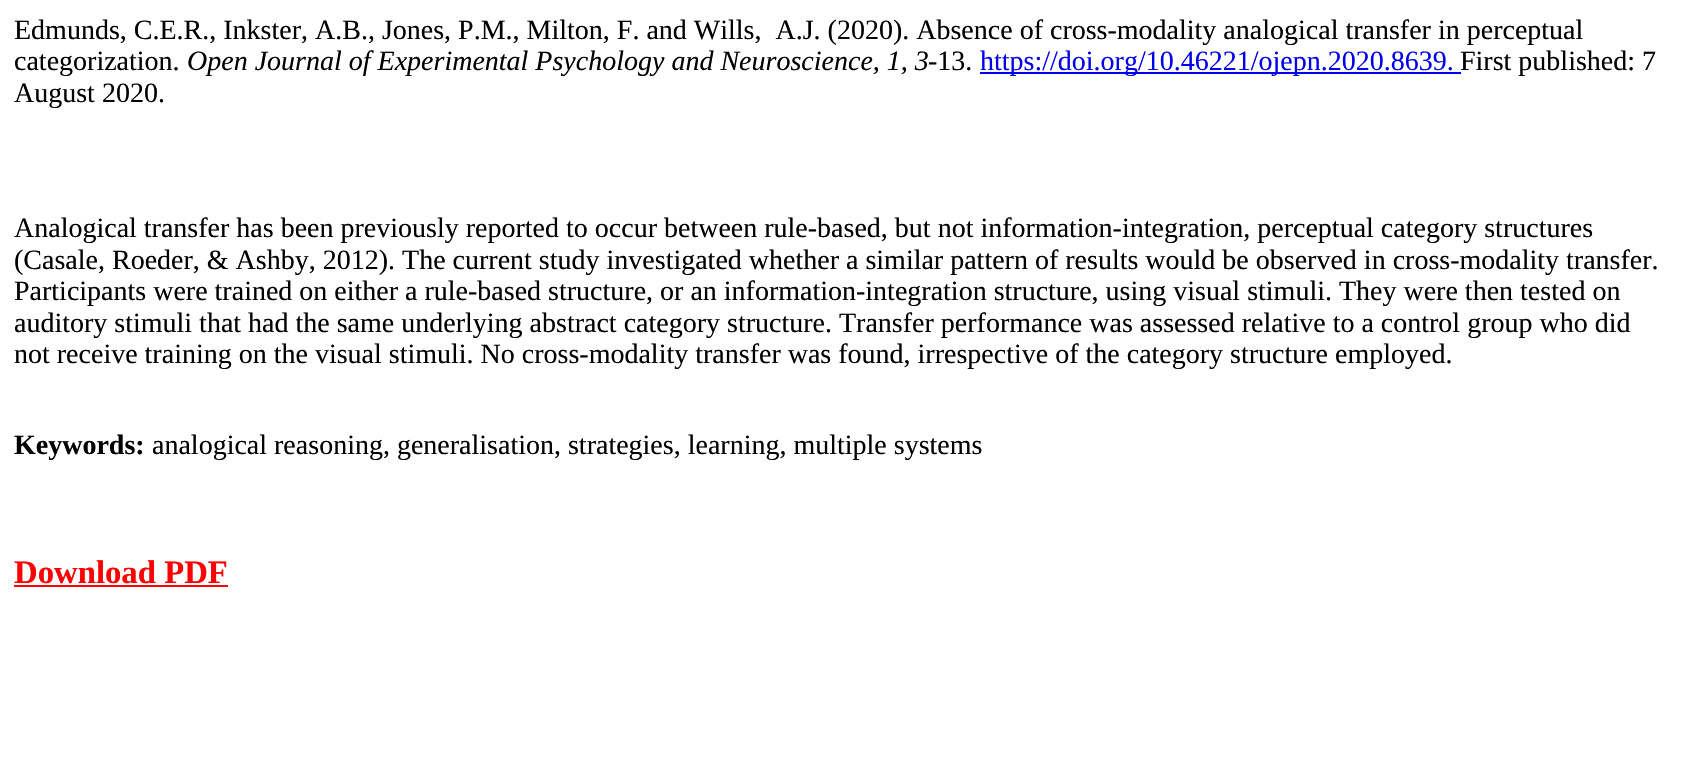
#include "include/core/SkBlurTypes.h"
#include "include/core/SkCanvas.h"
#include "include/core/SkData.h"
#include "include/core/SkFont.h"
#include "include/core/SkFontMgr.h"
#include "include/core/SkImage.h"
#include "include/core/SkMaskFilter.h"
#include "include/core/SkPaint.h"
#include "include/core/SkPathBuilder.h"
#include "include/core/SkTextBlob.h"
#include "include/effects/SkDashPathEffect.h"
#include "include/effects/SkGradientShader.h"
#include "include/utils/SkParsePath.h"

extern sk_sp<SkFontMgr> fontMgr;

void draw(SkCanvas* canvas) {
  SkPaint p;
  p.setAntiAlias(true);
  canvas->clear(SK_ColorWHITE);
  p.setColor(SkColorSetRGB(0, 0, 238));
  canvas->drawRect(SkRect::MakeLTRB(980, 72, 1461, 74), p);
  p.setColor(SkColorSetRGB(255, 0, 0));
  canvas->drawRect(SkRect::MakeLTRB(14, 585, 228, 587), p);
  SkFont font1(fontMgr->matchFamilyStyle("Liberation Serif", SkFontStyle::Normal()), 28);
  font1.setSubpixel(true);
  p.setColor(SK_ColorBLACK);
  canvas->drawString("Edmunds, C.E.R., Inkster, A.B., Jones, P.M., Milton, F. and Wills,  A.J. (2020). Absence of cross-modality analogical transfer in perceptual", 14, 39, font1, p);
  canvas->drawString("categorization.", 14, 70, font1, p);
  SkFont font2(fontMgr->matchFamilyStyle("Liberation Serif", SkFontStyle::Italic()), 28);
  font2.setSubpixel(true);
  canvas->drawString("Open Journal of Experimental Psychology and Neuroscience, 1, 3", 187, 70, font2, p);
  canvas->drawString("-13.", 928, 70, font1, p);
  p.setColor(SkColorSetRGB(0, 0, 238));
  canvas->drawString("https://doi.org/10.46221/ojepn.2020.8639.", 980, 70, font1, p);
  p.setColor(SK_ColorBLACK);
  canvas->drawString("First published: 7", 1460, 70, font1, p);
  canvas->drawString("August 2020.", 14, 102, font1, p);
  canvas->drawString("Analogical transfer has been previously reported to occur between rule-based, but not information-integration, perceptual category structures", 14, 237, font1, p);
  canvas->drawString("(Casale, Roeder, & Ashby, 2012). The current study investigated whether a similar pattern of results would be observed in cross-modality transfer.", 14, 269, font1, p);
  canvas->drawString("Participants were trained on either a rule-based structure, or an information-integration structure, using visual stimuli. They were then tested on", 14, 300, font1, p);
  canvas->drawString("auditory stimuli that had the same underlying abstract category structure. Transfer performance was assessed relative to a control group who did", 14, 332, font1, p);
  canvas->drawString("not receive training on the visual stimuli. No cross-modality transfer was found, irrespective of the category structure employed.", 14, 363, font1, p);
  SkFont font3(fontMgr->matchFamilyStyle("Liberation Serif", SkFontStyle::Bold()), 28);
  font3.setSubpixel(true);
  canvas->drawString("Keywords:", 14, 454, font3, p);
  canvas->drawString("analogical reasoning, generalisation, strategies, learning, multiple systems", 152, 454, font1, p);
  SkFont font4(fontMgr->matchFamilyStyle("Liberation Serif", SkFontStyle::Bold()), 32.75f);
  font4.setSubpixel(true);
  p.setColor(SkColorSetRGB(255, 0, 0));
  canvas->drawString("Download PDF", 14, 583, font4, p);
}
